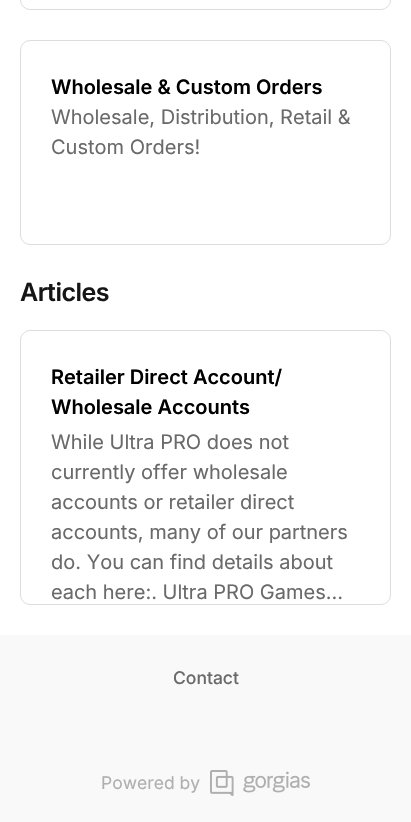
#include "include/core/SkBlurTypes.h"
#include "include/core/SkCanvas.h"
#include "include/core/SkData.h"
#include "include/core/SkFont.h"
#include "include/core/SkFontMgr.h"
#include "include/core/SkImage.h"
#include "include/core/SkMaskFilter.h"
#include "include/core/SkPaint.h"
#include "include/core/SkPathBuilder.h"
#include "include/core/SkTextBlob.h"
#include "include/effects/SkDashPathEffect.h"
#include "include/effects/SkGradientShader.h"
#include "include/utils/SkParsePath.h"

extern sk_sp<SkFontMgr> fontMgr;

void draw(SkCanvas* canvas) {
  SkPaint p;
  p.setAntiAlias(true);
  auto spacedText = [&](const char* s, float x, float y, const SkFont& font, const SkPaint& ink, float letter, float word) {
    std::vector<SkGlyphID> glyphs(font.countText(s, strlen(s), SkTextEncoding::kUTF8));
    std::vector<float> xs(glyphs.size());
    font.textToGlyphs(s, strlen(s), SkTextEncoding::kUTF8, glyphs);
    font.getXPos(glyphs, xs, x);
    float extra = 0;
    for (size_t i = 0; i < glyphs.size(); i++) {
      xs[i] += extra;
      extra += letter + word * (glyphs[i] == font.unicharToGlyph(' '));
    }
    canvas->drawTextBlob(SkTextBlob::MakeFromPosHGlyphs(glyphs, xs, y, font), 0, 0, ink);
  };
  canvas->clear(SK_ColorWHITE);
  p.setStyle(SkPaint::kStroke_Style);
  p.setStrokeWidth(1);
  p.setColor(SkColorSetRGB(221, 221, 221));
  canvas->drawRoundRect(SkRect::MakeLTRB(20.5f, -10.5f, 390.5f, 9.5f), 9.5f, 9.5f, p);
  canvas->drawRoundRect(SkRect::MakeLTRB(20.5f, 40.5f, 390.5f, 244.5f), 9.5f, 9.5f, p);
  canvas->drawRoundRect(SkRect::MakeLTRB(20.5f, 330.5f, 390.5f, 604.5f), 9.5f, 9.5f, p);
  p.setStyle(SkPaint::kFill_Style);
  p.setColor(SkColorSetRGB(249, 249, 249));
  canvas->drawRect(SkRect::MakeLTRB(0, 635, 411, 822), p);
  canvas->drawImageRect(SkImages::DeferredFromEncodedData(SkData::MakeFromFileName("images/1.png")), SkRect::MakeLTRB(210, 770, 310, 796), SkSamplingOptions());
  SkFont font1(fontMgr->matchFamilyStyle("Inter", SkFontStyle(600, SkFontStyle::kNormal_Width, SkFontStyle::kUpright_Slant)), 20);
  font1.setSubpixel(true);
  p.setColor(SK_ColorBLACK);
  canvas->drawString("Wholesale & Custom Orders", 51, 94, font1, p);
  SkFont font2(fontMgr->matchFamilyStyle("Inter", SkFontStyle::Normal()), 20);
  font2.setSubpixel(true);
  p.setColor(SkColorSetRGB(106, 106, 106));
  canvas->drawString("Wholesale, Distribution, Retail &", 51, 124, font2, p);
  canvas->drawString("Custom Orders!", 51, 154, font2, p);
  SkFont font3(fontMgr->matchFamilyStyle("Inter", SkFontStyle(600, SkFontStyle::kNormal_Width, SkFontStyle::kUpright_Slant)), 25);
  font3.setSubpixel(true);
  p.setColor(SkColorSetRGB(22, 22, 22));
  spacedText("Articles", 20, 301, font3, p, -0.5f, 0);
  p.setColor(SK_ColorBLACK);
  canvas->drawString("Retailer Direct Account/", 51, 384, font1, p);
  canvas->drawString("Wholesale Accounts", 51, 414, font1, p);
  p.setColor(SkColorSetRGB(106, 106, 106));
  canvas->drawString("While Ultra PRO does not", 51, 449, font2, p);
  canvas->drawString("currently offer wholesale", 51, 479, font2, p);
  canvas->drawString("accounts or retailer direct", 51, 509, font2, p);
  canvas->drawString("accounts, many of our partners", 51, 539, font2, p);
  canvas->drawString("do. You can find details about", 51, 569, font2, p);
  canvas->drawString("each here:. Ultra PRO Games…", 51, 599, font2, p);
  SkFont font4(fontMgr->matchFamilyStyle("Inter", SkFontStyle(500, SkFontStyle::kNormal_Width, SkFontStyle::kUpright_Slant)), 17.5f);
  font4.setSubpixel(true);
  canvas->drawString("Contact", 173, 684, font4, p);
  SkFont font5(fontMgr->matchFamilyStyle("Inter", SkFontStyle::Normal()), 17.5f);
  font5.setSubpixel(true);
  p.setColor(SkColorSetRGB(175, 175, 175));
  canvas->drawString("Powered by", 101, 789, font5, p);
}
